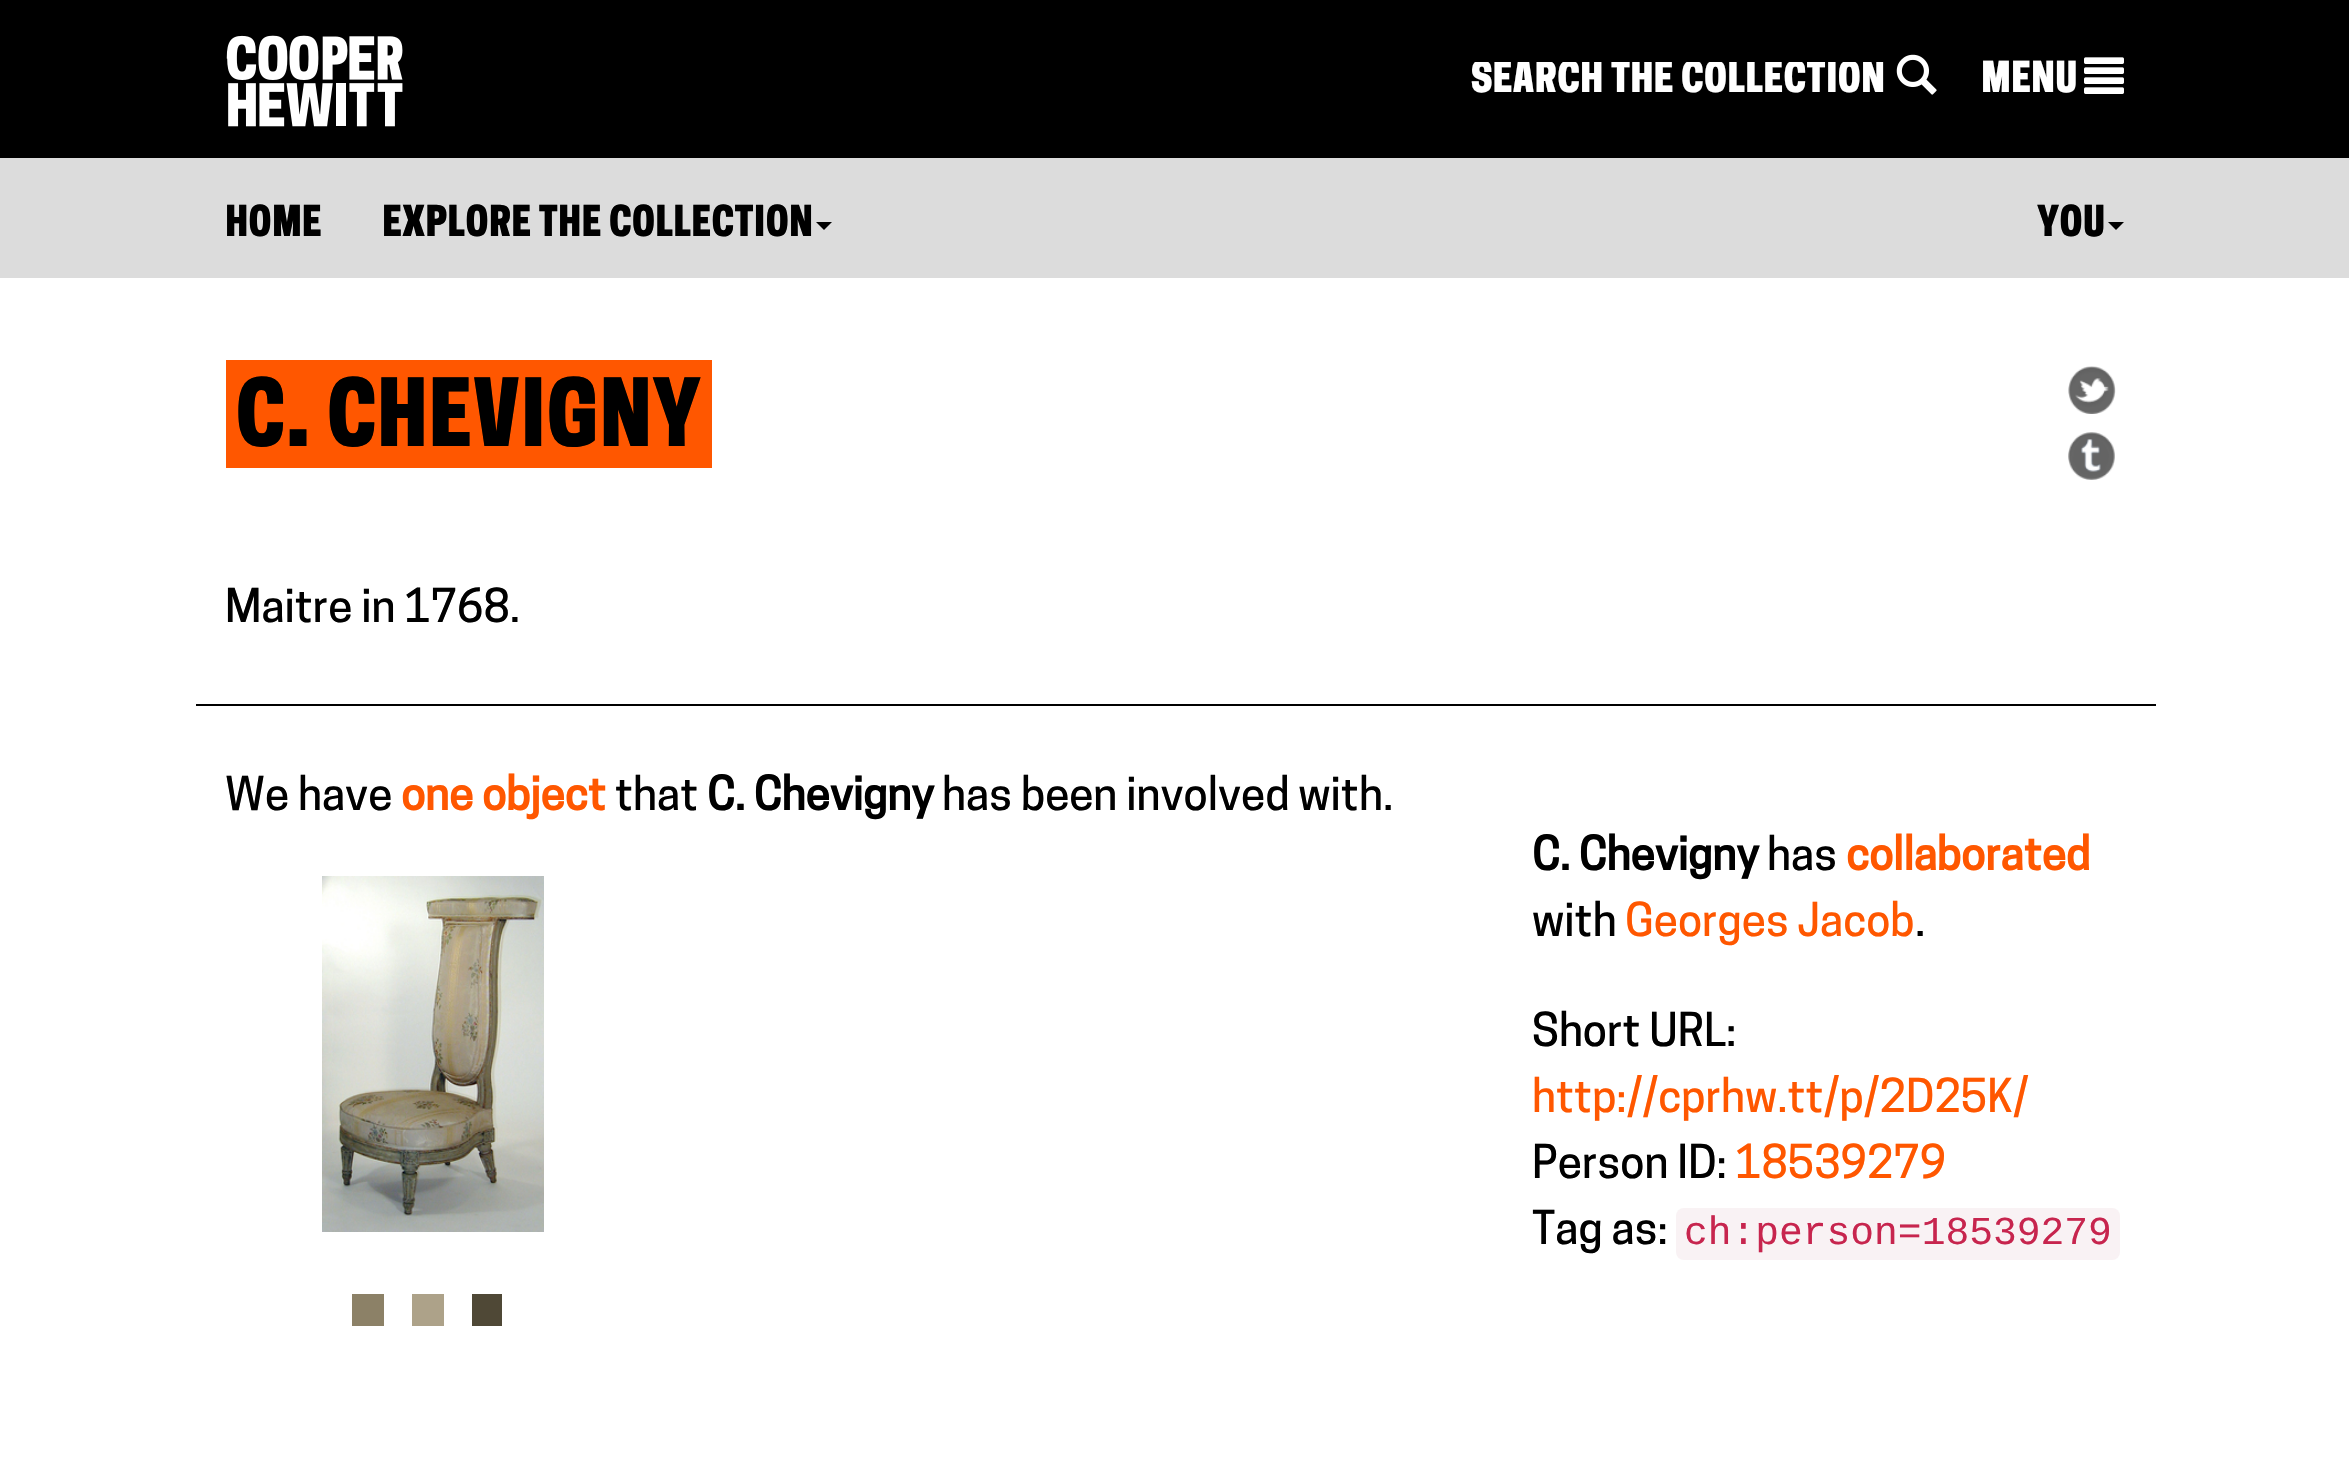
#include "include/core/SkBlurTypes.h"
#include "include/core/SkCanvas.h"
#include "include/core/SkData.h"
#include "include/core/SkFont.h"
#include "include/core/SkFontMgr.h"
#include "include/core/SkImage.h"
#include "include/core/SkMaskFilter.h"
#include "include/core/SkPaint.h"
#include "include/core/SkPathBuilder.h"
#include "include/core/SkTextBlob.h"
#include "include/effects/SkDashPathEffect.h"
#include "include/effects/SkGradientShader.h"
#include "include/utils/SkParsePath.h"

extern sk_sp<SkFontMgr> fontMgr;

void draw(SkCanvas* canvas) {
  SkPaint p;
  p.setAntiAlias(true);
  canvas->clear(SK_ColorWHITE);
  p.setColor(SK_ColorBLACK);
  canvas->drawRect(SkRect::MakeLTRB(0, 0, 2349, 158), p);
  canvas->drawImageRect(SkImages::DeferredFromEncodedData(SkData::MakeFromFileName("images/1.png")), SkRect::MakeLTRB(226, 35, 403, 127), SkSamplingOptions());
  canvas->drawImageRect(SkImages::DeferredFromEncodedData(SkData::MakeFromFileName("images/2.png")), SkRect::MakeLTRB(1896, 54, 1937, 95), SkSamplingOptions());
  canvas->drawImageRect(SkImages::DeferredFromEncodedData(SkData::MakeFromFileName("images/3.png")), SkRect::MakeLTRB(2084, 57, 2124, 94), SkSamplingOptions());
  p.setColor(SkColorSetRGB(220, 220, 220));
  canvas->drawRect(SkRect::MakeLTRB(0, 158, 2349, 278), p);
  p.setColor(SK_ColorBLACK);
  canvas->drawPath(SkPathBuilder().moveTo(816, 222).lineTo(832, 222).lineTo(824, 230).close().detach(), p);
  canvas->drawPath(SkPathBuilder().moveTo(2108, 222).lineTo(2124, 222).lineTo(2116, 230).close().detach(), p);
  p.setColor(SkColorSetRGB(255, 87, 0));
  canvas->drawRect(SkRect::MakeLTRB(226, 360, 712, 468), p);
  canvas->drawImageRect(SkImages::DeferredFromEncodedData(SkData::MakeFromFileName("images/4.png")), SkRect::MakeLTRB(2068, 366, 2116, 414), SkSamplingOptions());
  canvas->drawImageRect(SkImages::DeferredFromEncodedData(SkData::MakeFromFileName("images/5.png")), SkRect::MakeLTRB(2068, 432, 2115, 480), SkSamplingOptions());
  p.setColor(SK_ColorBLACK);
  canvas->drawRect(SkRect::MakeLTRB(196, 704, 2156, 706), p);
  canvas->drawImageRect(SkImages::DeferredFromEncodedData(SkData::MakeFromFileName("images/6.png")), SkRect::MakeLTRB(322, 876, 544, 1232), SkSamplingOptions());
  p.setColor(SkColorSetRGB(140, 129, 103));
  canvas->drawRect(SkRect::MakeLTRB(352, 1294, 384, 1326), p);
  p.setColor(SkColorSetRGB(173, 162, 137));
  canvas->drawRect(SkRect::MakeLTRB(412, 1294, 444, 1326), p);
  p.setColor(SkColorSetRGB(79, 72, 54));
  canvas->drawRect(SkRect::MakeLTRB(472, 1294, 502, 1326), p);
  p.setColor(SkColorSetRGB(249, 242, 244));
  canvas->drawRoundRect(SkRect::MakeLTRB(1676, 1208, 2120, 1260), 8, 8, p);
  canvas->save();
  canvas->clipRect(SkRect::MakeLTRB(1392, 62, 1884, 102));
  SkFont font1(fontMgr->matchFamilyStyle("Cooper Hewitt", SkFontStyle(600, SkFontStyle::kNormal_Width, SkFontStyle::kUpright_Slant)), 40);
  font1.setSubpixel(true);
  p.setColor(SK_ColorWHITE);
  canvas->drawString("SEARCH THE COLLECTION", 1471, 92, font1, p);
  canvas->restore();
  canvas->drawString("MENU", 1981, 92, font1, p);
  p.setColor(SK_ColorBLACK);
  canvas->drawString("HOME", 225, 236, font1, p);
  canvas->drawString("EXPLORE THE COLLECTION", 382, 236, font1, p);
  canvas->drawString("YOU", 2037, 236, font1, p);
  SkFont font2(fontMgr->matchFamilyStyle("Cooper Hewitt", SkFontStyle(600, SkFontStyle::kNormal_Width, SkFontStyle::kUpright_Slant)), 88);
  font2.setSubpixel(true);
  canvas->drawString("C. CHEVIGNY", 235, 446, font2, p);
  SkFont font3(fontMgr->matchFamilyStyle("Cooper Hewitt", SkFontStyle(500, SkFontStyle::kNormal_Width, SkFontStyle::kUpright_Slant)), 44);
  font3.setSubpixel(true);
  canvas->drawString("Maitre in 1768.", 225, 622, font3, p);
  canvas->drawString("We have", 225, 810, font3, p);
  SkFont font4(fontMgr->matchFamilyStyle("Cooper Hewitt", SkFontStyle::Bold()), 44);
  font4.setSubpixel(true);
  p.setColor(SkColorSetRGB(255, 87, 0));
  canvas->drawString("one object", 401, 810, font4, p);
  p.setColor(SK_ColorBLACK);
  canvas->drawString("that", 615, 810, font3, p);
  canvas->drawString("C. Chevigny", 707, 810, font4, p);
  canvas->drawString("has been involved with.", 942, 810, font3, p);
  canvas->drawString("C. Chevigny", 1532, 870, font4, p);
  canvas->drawString("has", 1767, 870, font3, p);
  p.setColor(SkColorSetRGB(255, 87, 0));
  canvas->drawString("collaborated", 1846, 870, font4, p);
  p.setColor(SK_ColorBLACK);
  canvas->drawString("with", 1532, 936, font3, p);
  p.setColor(SkColorSetRGB(255, 87, 0));
  canvas->drawString("Georges Jacob", 1625, 936, font3, p);
  p.setColor(SK_ColorBLACK);
  canvas->drawString(".", 1915, 936, font3, p);
  canvas->drawString("Short URL:", 1532, 1046, font3, p);
  p.setColor(SkColorSetRGB(255, 87, 0));
  canvas->drawString("http://cprhw.tt/p/2D25K/", 1532, 1112, font3, p);
  p.setColor(SK_ColorBLACK);
  canvas->drawString("Person ID:", 1532, 1178, font3, p);
  p.setColor(SkColorSetRGB(255, 87, 0));
  canvas->drawString("18539279", 1735, 1178, font3, p);
  p.setColor(SK_ColorBLACK);
  canvas->drawString("Tag as:", 1532, 1244, font3, p);
  SkFont font5(fontMgr->matchFamilyStyle("Liberation Mono", SkFontStyle::Normal()), 39.6f);
  font5.setSubpixel(true);
  p.setColor(SkColorSetRGB(199, 37, 78));
  canvas->drawString("ch:person=18539279", 1684, 1244, font5, p);
}
